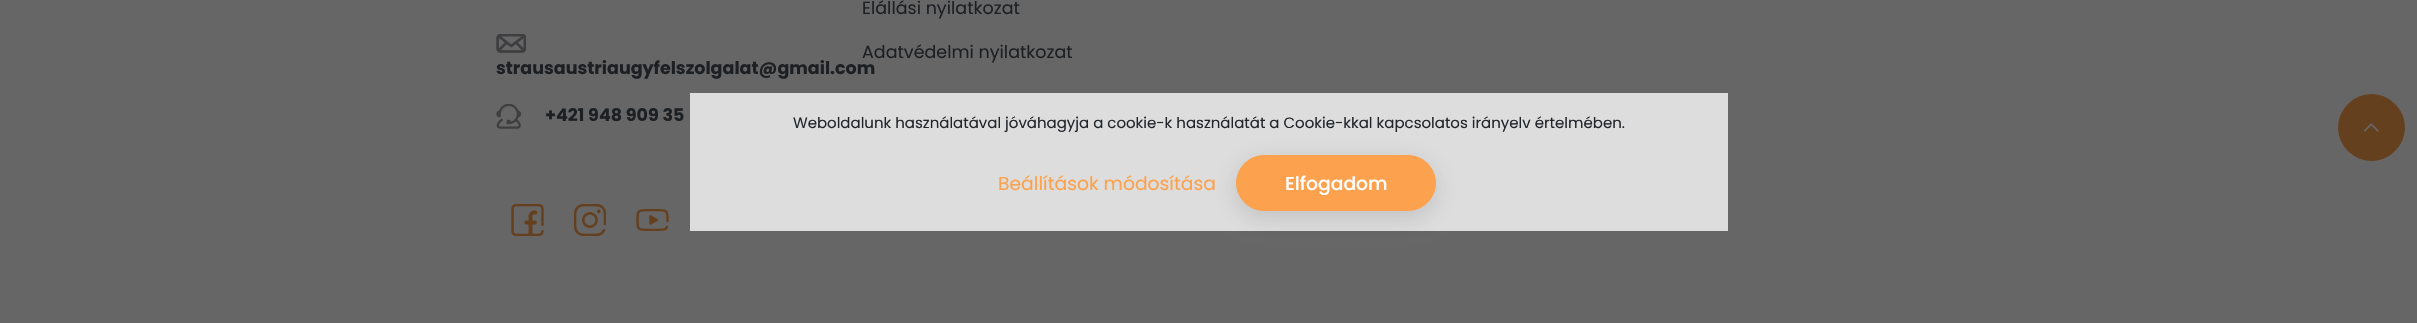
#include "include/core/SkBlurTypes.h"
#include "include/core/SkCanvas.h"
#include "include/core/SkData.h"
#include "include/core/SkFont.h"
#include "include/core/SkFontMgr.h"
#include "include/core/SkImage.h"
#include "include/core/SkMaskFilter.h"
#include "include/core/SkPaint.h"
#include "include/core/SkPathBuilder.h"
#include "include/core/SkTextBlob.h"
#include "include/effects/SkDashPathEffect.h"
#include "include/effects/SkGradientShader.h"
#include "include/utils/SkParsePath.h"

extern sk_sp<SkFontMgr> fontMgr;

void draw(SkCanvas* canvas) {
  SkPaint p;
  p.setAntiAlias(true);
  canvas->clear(SkColorSetRGB(102, 102, 102));
  canvas->drawImageRect(SkImages::DeferredFromEncodedData(SkData::MakeFromFileName("images/1.png")), SkRect::MakeLTRB(496, 34, 526, 53), SkSamplingOptions());
  canvas->drawImageRect(SkImages::DeferredFromEncodedData(SkData::MakeFromFileName("images/2.png")), SkRect::MakeLTRB(496, 104, 521, 129), SkSamplingOptions());
  canvas->drawImageRect(SkImages::DeferredFromEncodedData(SkData::MakeFromFileName("images/3.png")), SkRect::MakeLTRB(511, 204, 544, 236), SkSamplingOptions());
  canvas->drawImageRect(SkImages::DeferredFromEncodedData(SkData::MakeFromFileName("images/4.png")), SkRect::MakeLTRB(574, 204, 606, 236), SkSamplingOptions());
  canvas->drawImageRect(SkImages::DeferredFromEncodedData(SkData::MakeFromFileName("images/5.png")), SkRect::MakeLTRB(636, 209, 669, 231), SkSamplingOptions());
  p.setColor(SkColorSetRGB(101, 64, 31));
  canvas->drawCircle(2371.5f, 127.5f, 33, p);
  p.setStyle(SkPaint::kStroke_Style);
  p.setStrokeWidth(1);
  canvas->drawCircle(2371.5f, 127.5f, 33, p);
  canvas->drawImageRect(SkImages::DeferredFromEncodedData(SkData::MakeFromFileName("images/6.png")), SkRect::MakeLTRB(2363, 123, 2379, 132), SkSamplingOptions());
  p.setStyle(SkPaint::kFill_Style);
  p.setColor(SkColorSetARGB(230, 234, 234, 234));
  canvas->drawRect(SkRect::MakeLTRB(690, 93, 1728, 231), p);
  p.setColor(SkColorSetARGB(38, 32, 32, 44));
  p.setMaskFilter(SkMaskFilter::MakeBlur(kNormal_SkBlurStyle, 12.5f));
  canvas->drawRoundRect(SkRect::MakeLTRB(1236, 161, 1436, 218), 28.5f, 28.5f, p);
  p.setMaskFilter(nullptr);
  p.setColor(SkColorSetRGB(252, 161, 77));
  canvas->drawRoundRect(SkRect::MakeLTRB(1236.5f, 155.5f, 1435.5f, 210.5f), 27.5f, 27.5f, p);
  p.setStyle(SkPaint::kStroke_Style);
  canvas->drawRoundRect(SkRect::MakeLTRB(1236.5f, 155.5f, 1435.5f, 210.5f), 27.5f, 27.5f, p);
  SkFont font1(fontMgr->matchFamilyStyle("Poppins", SkFontStyle::Normal()), 17.5f);
  font1.setSubpixel(true);
  p.setStyle(SkPaint::kFill_Style);
  p.setColor(SkColorSetRGB(29, 32, 35));
  canvas->drawString("Elállási nyilatkozat", 862, 14, font1, p);
  canvas->drawString("Adatvédelmi nyilatkozat", 862, 58, font1, p);
  SkFont font2(fontMgr->matchFamilyStyle("Poppins", SkFontStyle::Bold()), 17.5f);
  font2.setSubpixel(true);
  canvas->drawString("strausaustriaugyfelszolgalat@gmail.com", 496, 74, font2, p);
  canvas->drawString("+421 948 909 35", 545, 121, font2, p);
  SkFont font3(fontMgr->matchFamilyStyle("Poppins", SkFontStyle::Normal()), 15);
  font3.setSubpixel(true);
  p.setColor(SkColorSetRGB(33, 37, 41));
  canvas->drawString("Weboldalunk használatával jóváhagyja a cookie-k használatát a Cookie-kkal kapcsolatos irányelv értelmében.", 793, 128, font3, p);
  SkFont font4(fontMgr->matchFamilyStyle("Poppins", SkFontStyle::Normal()), 18.75f);
  font4.setSubpixel(true);
  p.setColor(SkColorSetRGB(252, 161, 77));
  canvas->drawString("Beállítások módosítása", 998, 190, font4, p);
  SkFont font5(fontMgr->matchFamilyStyle("Poppins", SkFontStyle(500, SkFontStyle::kNormal_Width, SkFontStyle::kUpright_Slant)), 18.75f);
  font5.setSubpixel(true);
  p.setColor(SK_ColorWHITE);
  canvas->drawString("Elfogadom", 1285, 190, font5, p);
}
